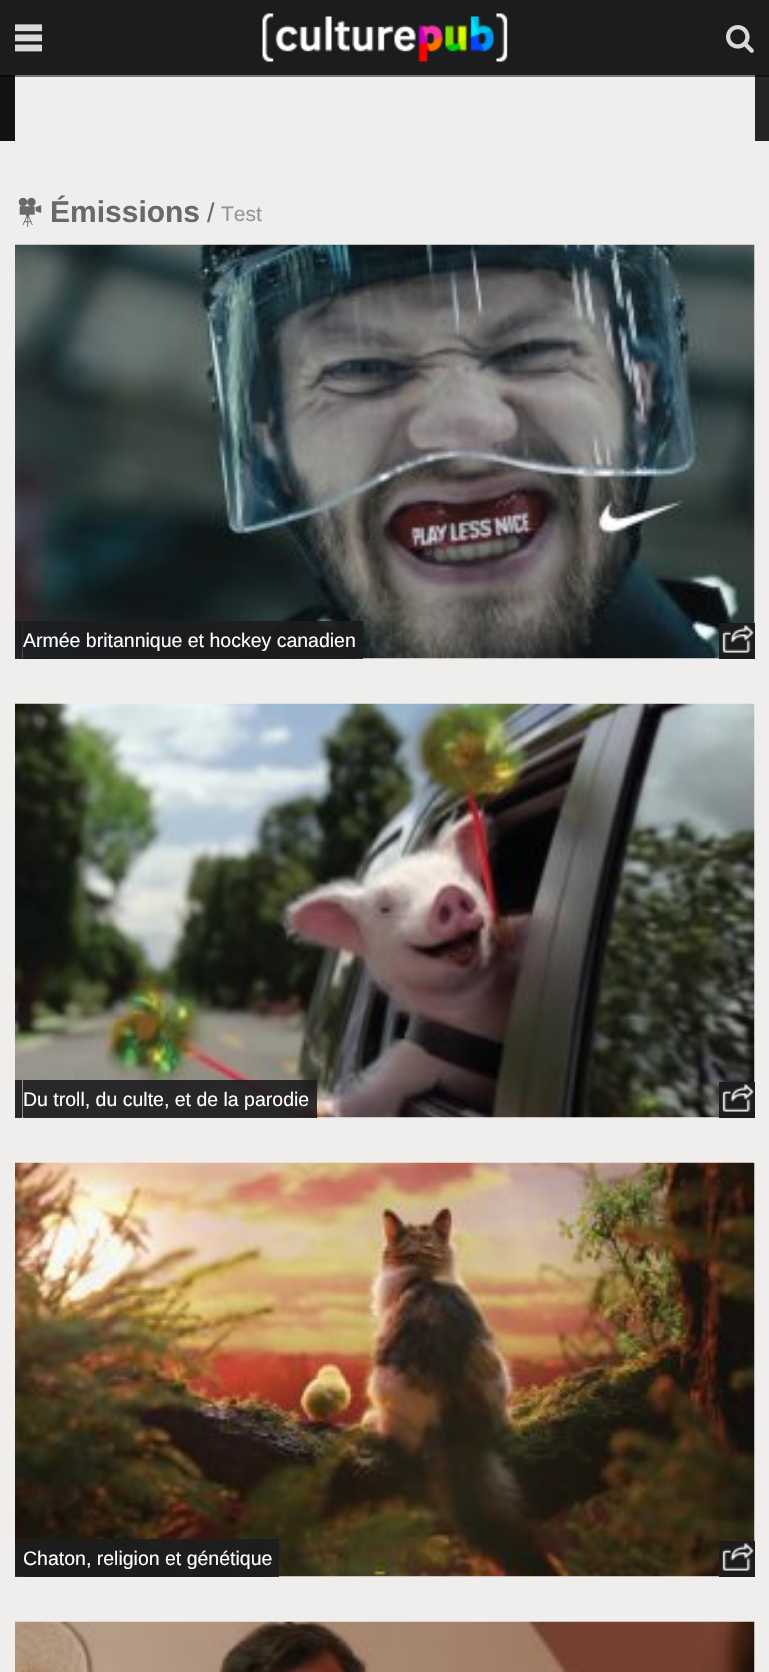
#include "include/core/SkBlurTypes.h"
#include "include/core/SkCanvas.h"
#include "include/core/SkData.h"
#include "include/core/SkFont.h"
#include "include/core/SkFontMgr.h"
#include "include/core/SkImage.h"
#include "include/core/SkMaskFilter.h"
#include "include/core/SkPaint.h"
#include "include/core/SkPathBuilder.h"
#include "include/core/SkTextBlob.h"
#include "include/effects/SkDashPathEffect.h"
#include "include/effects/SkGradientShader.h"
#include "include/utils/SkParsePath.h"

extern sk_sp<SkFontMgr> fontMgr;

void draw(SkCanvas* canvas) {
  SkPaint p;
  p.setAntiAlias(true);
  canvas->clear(SkColorSetRGB(36, 37, 39));
  p.setColor(SkColorSetARGB(128, 0, 0, 0));
  p.setMaskFilter(SkMaskFilter::MakeBlur(kNormal_SkBlurStyle, 4));
  canvas->drawRect(SkRect::MakeLTRB(-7, -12, 732, 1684), p);
  p.setMaskFilter(nullptr);
  p.setColor(SkColorSetRGB(240, 238, 237));
  canvas->drawRect(SkRect::MakeLTRB(15, 75, 755, 141), p);
  p.setColor(SkColorSetARGB(128, 0, 0, 0));
  canvas->drawPath(SkPathBuilder().moveTo(0, 75).lineTo(0, 77).lineTo(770, 77).lineTo(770, 2).lineTo(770, 75).close().detach(), p);
  p.setColor(SkColorSetRGB(27, 28, 30));
  canvas->drawRect(SkRect::MakeLTRB(0, 0, 769, 75), p);
  canvas->drawImageRect(SkImages::DeferredFromEncodedData(SkData::MakeFromFileName("images/1.png")), SkRect::MakeLTRB(15, 24, 42, 52), SkSamplingOptions());
  canvas->drawImageRect(SkImages::DeferredFromEncodedData(SkData::MakeFromFileName("images/2.png")), SkRect::MakeLTRB(262, 13, 508, 62), SkSamplingOptions());
  canvas->drawImageRect(SkImages::DeferredFromEncodedData(SkData::MakeFromFileName("images/3.png")), SkRect::MakeLTRB(726, 25, 754, 53), SkSamplingOptions());
  p.setColor(SkColorSetRGB(240, 238, 237));
  canvas->drawRect(SkRect::MakeLTRB(0, 141, 769, 1672), p);
  canvas->drawImageRect(SkImages::DeferredFromEncodedData(SkData::MakeFromFileName("images/4.png")), SkRect::MakeLTRB(18, 197, 42, 227), SkSamplingOptions());
  canvas->drawImageRect(SkImages::DeferredFromEncodedData(SkData::MakeFromFileName("images/5.png")), SkRect::MakeLTRB(15, 244, 755, 659), SkSamplingOptions());
  p.setColor(SkColorSetARGB(230, 28, 28, 30));
  canvas->drawPath(SkPathBuilder().moveTo(15, 621).lineTo(15, 659).lineTo(348, 659).lineTo(348, 658).lineTo(22, 658).lineTo(22, 621).close().detach(), p);
  canvas->drawPath(SkPathBuilder().moveTo(30, 658).lineTo(30, 659).lineTo(363, 659).lineTo(363, 621).lineTo(356, 621).lineTo(356, 658).close().detach(), p);
  canvas->drawRect(SkRect::MakeLTRB(23, 621, 356, 659), p);
  p.setColor(SkColorSetRGB(28, 28, 30));
  canvas->drawRect(SkRect::MakeLTRB(719, 623, 755, 659), p);
  canvas->drawImageRect(SkImages::DeferredFromEncodedData(SkData::MakeFromFileName("images/6.png")), SkRect::MakeLTRB(722, 625, 754, 653), SkSamplingOptions());
  canvas->drawImageRect(SkImages::DeferredFromEncodedData(SkData::MakeFromFileName("images/7.png")), SkRect::MakeLTRB(15, 703, 755, 1118), SkSamplingOptions());
  p.setColor(SkColorSetARGB(230, 28, 28, 30));
  canvas->drawPath(SkPathBuilder().moveTo(15, 1080).lineTo(15, 1118).lineTo(302, 1118).lineTo(22, 1118).lineTo(22, 1080).close().detach(), p);
  canvas->drawPath(SkPathBuilder().moveTo(30, 1118).lineTo(317, 1118).lineTo(317, 1080).lineTo(309, 1080).lineTo(309, 1118).close().detach(), p);
  canvas->drawRect(SkRect::MakeLTRB(23, 1080, 309, 1118), p);
  p.setColor(SkColorSetRGB(28, 28, 30));
  canvas->drawRect(SkRect::MakeLTRB(719, 1082, 755, 1118), p);
  canvas->drawImageRect(SkImages::DeferredFromEncodedData(SkData::MakeFromFileName("images/6.png")), SkRect::MakeLTRB(722, 1084, 754, 1112), SkSamplingOptions());
  canvas->drawImageRect(SkImages::DeferredFromEncodedData(SkData::MakeFromFileName("images/8.png")), SkRect::MakeLTRB(15, 1162, 755, 1577), SkSamplingOptions());
  p.setColor(SkColorSetARGB(230, 28, 28, 30));
  canvas->drawPath(SkPathBuilder().moveTo(15, 1539).lineTo(15, 1577).lineTo(264, 1577).lineTo(264, 1576).lineTo(22, 1576).lineTo(22, 1539).close().detach(), p);
  canvas->drawPath(SkPathBuilder().moveTo(30, 1576).lineTo(30, 1577).lineTo(279, 1577).lineTo(279, 1539).lineTo(272, 1539).lineTo(272, 1576).close().detach(), p);
  canvas->drawRect(SkRect::MakeLTRB(23, 1539, 272, 1577), p);
  p.setColor(SkColorSetRGB(28, 28, 30));
  canvas->drawRect(SkRect::MakeLTRB(719, 1541, 755, 1577), p);
  canvas->drawImageRect(SkImages::DeferredFromEncodedData(SkData::MakeFromFileName("images/6.png")), SkRect::MakeLTRB(722, 1543, 754, 1571), SkSamplingOptions());
  canvas->drawImageRect(SkImages::DeferredFromEncodedData(SkData::MakeFromFileName("images/9.png")), SkRect::MakeLTRB(15, 1621, 755, 1672), SkSamplingOptions());
  SkFont font1(fontMgr->matchFamilyStyle("Liberation Sans", SkFontStyle::Bold()), 30);
  font1.setSubpixel(true);
  p.setColor(SkColorSetRGB(105, 105, 105));
  canvas->drawString("Émissions", 50, 222, font1, p);
  SkFont font2(fontMgr->matchFamilyStyle("Liberation Sans", SkFontStyle::Normal()), 27);
  font2.setSubpixel(true);
  canvas->drawString("/", 207, 222, font2, p);
  SkFont font3(fontMgr->matchFamilyStyle("Liberation Sans", SkFontStyle::Normal()), 21);
  font3.setSubpixel(true);
  p.setColor(SkColorSetRGB(149, 149, 149));
  canvas->drawString("Test", 221, 221, font3, p);
  SkFont font4(fontMgr->matchFamilyStyle("Liberation Sans", SkFontStyle::Normal()), 19.5f);
  font4.setSubpixel(true);
  p.setColor(SK_ColorWHITE);
  canvas->drawString("Armée britannique et hockey canadien", 23, 647, font4, p);
  canvas->drawString("Du troll, du culte, et de la parodie", 23, 1106, font4, p);
  canvas->drawString("Chaton, religion et génétique", 23, 1565, font4, p);
}
